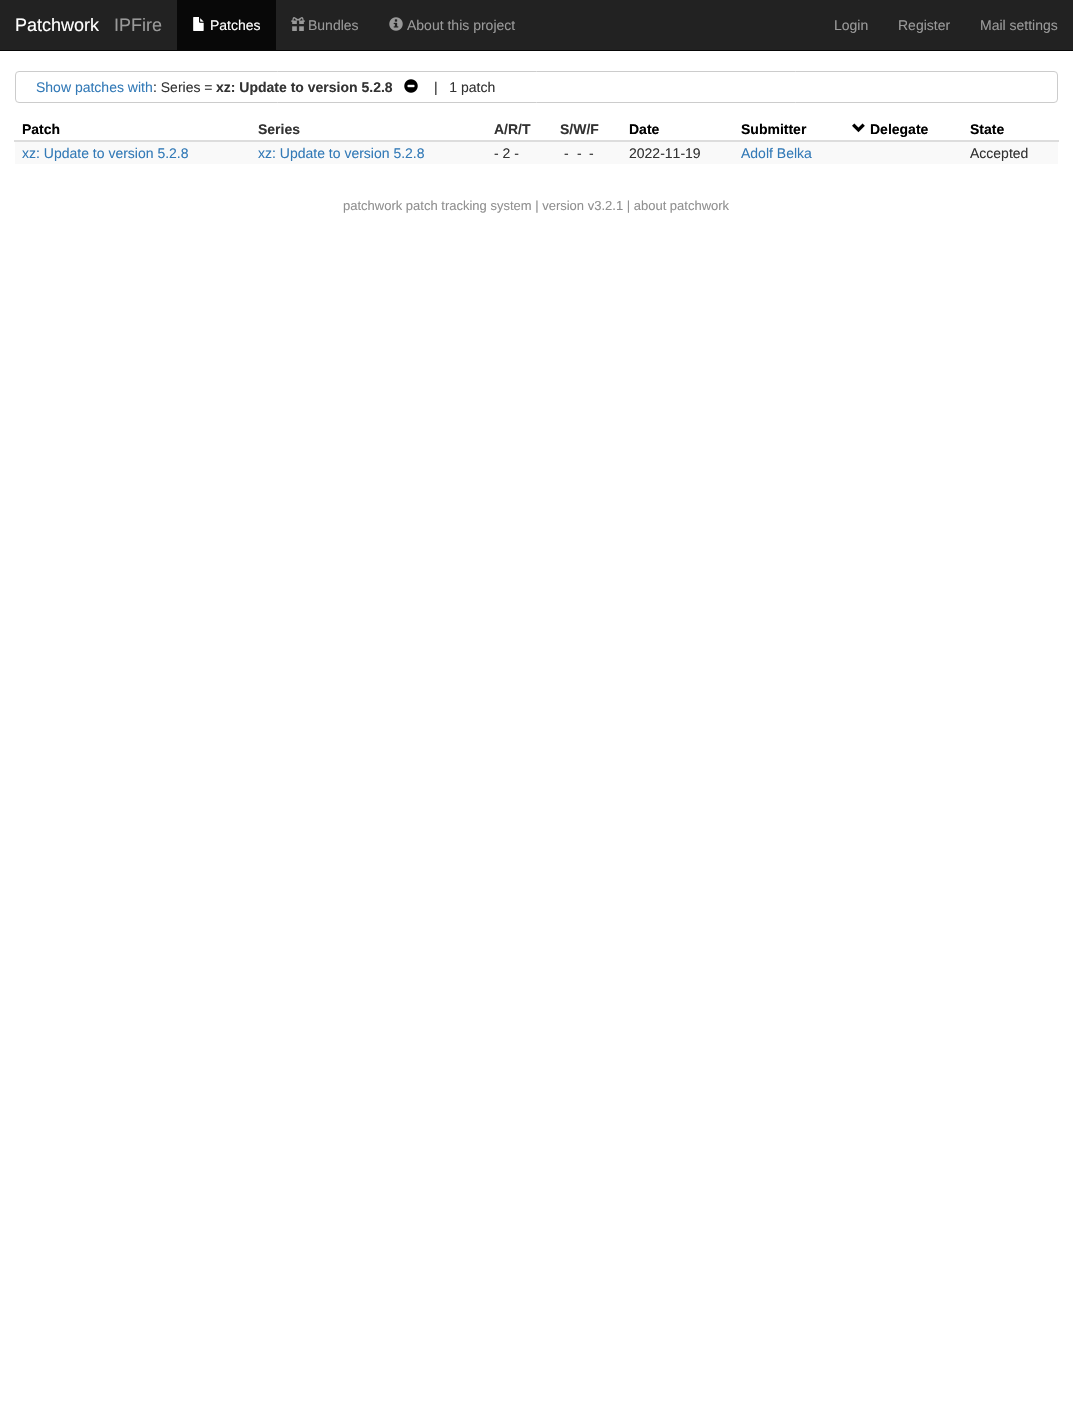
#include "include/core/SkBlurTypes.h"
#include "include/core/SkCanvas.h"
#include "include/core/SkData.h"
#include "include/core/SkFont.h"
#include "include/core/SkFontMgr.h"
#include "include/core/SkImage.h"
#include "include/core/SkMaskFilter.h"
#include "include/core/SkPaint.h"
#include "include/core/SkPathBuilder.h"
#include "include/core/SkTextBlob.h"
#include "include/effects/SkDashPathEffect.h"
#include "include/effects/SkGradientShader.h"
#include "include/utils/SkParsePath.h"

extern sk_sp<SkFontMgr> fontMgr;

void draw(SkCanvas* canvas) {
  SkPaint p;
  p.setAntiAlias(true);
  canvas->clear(SK_ColorWHITE);
  p.setColor(SkColorSetRGB(34, 34, 34));
  canvas->drawRect(SkRect::MakeLTRB(0, 0, 1073, 50), p);
  p.setColor(SkColorSetRGB(8, 8, 8));
  canvas->drawRect(SkRect::MakeLTRB(0, 50, 1073, 51), p);
  canvas->drawRect(SkRect::MakeLTRB(177, 0, 276, 50), p);
  canvas->drawImageRect(SkImages::DeferredFromEncodedData(SkData::MakeFromFileName("images/1.png")), SkRect::MakeLTRB(193, 17, 204, 31), SkSamplingOptions());
  canvas->drawImageRect(SkImages::DeferredFromEncodedData(SkData::MakeFromFileName("images/2.png")), SkRect::MakeLTRB(291, 17, 305, 31), SkSamplingOptions());
  canvas->drawImageRect(SkImages::DeferredFromEncodedData(SkData::MakeFromFileName("images/3.png")), SkRect::MakeLTRB(389, 17, 403, 31), SkSamplingOptions());
  p.setStyle(SkPaint::kStroke_Style);
  p.setStrokeWidth(1);
  p.setColor(SkColorSetRGB(204, 204, 204));
  canvas->drawRoundRect(SkRect::MakeLTRB(15.5f, 71.5f, 1057.5f, 102.5f), 3.5f, 3.5f, p);
  canvas->drawImageRect(SkImages::DeferredFromEncodedData(SkData::MakeFromFileName("images/4.png")), SkRect::MakeLTRB(404, 79, 418, 93), SkSamplingOptions());
  canvas->drawImageRect(SkImages::DeferredFromEncodedData(SkData::MakeFromFileName("images/5.png")), SkRect::MakeLTRB(852, 123, 865, 133), SkSamplingOptions());
  p.setStyle(SkPaint::kFill_Style);
  p.setColor(SkColorSetRGB(221, 221, 221));
  canvas->drawRect(SkRect::MakeLTRB(14, 140, 1059, 142), p);
  p.setColor(SkColorSetRGB(249, 249, 249));
  canvas->drawRect(SkRect::MakeLTRB(15, 142, 1058, 164), p);
  SkFont font1(fontMgr->matchFamilyStyle("Liberation Sans", SkFontStyle::Normal()), 18);
  font1.setSubpixel(true);
  p.setColor(SK_ColorWHITE);
  canvas->drawString("Patchwork", 15, 31, font1, p);
  p.setColor(SkColorSetRGB(153, 153, 153));
  canvas->drawString("IPFire", 114, 31, font1, p);
  SkFont font2(fontMgr->matchFamilyStyle("Liberation Sans", SkFontStyle::Normal()), 14);
  font2.setSubpixel(true);
  p.setColor(SK_ColorWHITE);
  canvas->drawString("Patches", 210, 30, font2, p);
  p.setColor(SkColorSetRGB(153, 153, 153));
  canvas->drawString("Bundles", 308, 30, font2, p);
  canvas->drawString("About this project", 407, 30, font2, p);
  canvas->drawString("Login", 834, 30, font2, p);
  canvas->drawString("Register", 898, 30, font2, p);
  canvas->drawString("Mail settings", 980, 30, font2, p);
  p.setColor(SkColorSetRGB(51, 122, 183));
  canvas->drawString("Show patches with", 36, 92, font2, p);
  p.setColor(SkColorSetRGB(51, 51, 51));
  canvas->drawString(": Series =", 153, 92, font2, p);
  SkFont font3(fontMgr->matchFamilyStyle("Liberation Sans", SkFontStyle::Bold()), 14);
  font3.setSubpixel(true);
  canvas->drawString("xz: Update to version 5.2.8", 216, 92, font3, p);
  canvas->drawString("|   1 patch", 434, 92, font2, p);
  p.setColor(SK_ColorBLACK);
  canvas->drawString("Patch", 22, 134, font3, p);
  p.setColor(SkColorSetRGB(51, 51, 51));
  canvas->drawString("Series", 258, 134, font3, p);
  canvas->drawString("A/R/T", 494, 134, font3, p);
  canvas->drawString("S/W/F", 560, 134, font3, p);
  p.setColor(SK_ColorBLACK);
  canvas->drawString("Date", 629, 134, font3, p);
  canvas->drawString("Submitter", 741, 134, font3, p);
  canvas->drawString("Delegate", 870, 134, font3, p);
  canvas->drawString("State", 970, 134, font3, p);
  p.setColor(SkColorSetRGB(51, 122, 183));
  canvas->drawString("xz: Update to version 5.2.8", 22, 158, font2, p);
  canvas->drawString("xz: Update to version 5.2.8", 258, 158, font2, p);
  p.setColor(SkColorSetRGB(51, 51, 51));
  canvas->drawString("- 2 -", 494, 158, font2, p);
  canvas->drawString("-", 564, 158, font2, p);
  canvas->drawString("-", 577, 158, font2, p);
  canvas->drawString("-", 589, 158, font2, p);
  canvas->drawString("2022-11-19", 629, 158, font2, p);
  p.setColor(SkColorSetRGB(51, 122, 183));
  canvas->drawString("Adolf Belka", 741, 158, font2, p);
  p.setColor(SkColorSetRGB(51, 51, 51));
  canvas->drawString("Accepted", 970, 158, font2, p);
  SkFont font4(fontMgr->matchFamilyStyle("Liberation Sans", SkFontStyle::Normal()), 13);
  font4.setSubpixel(true);
  p.setColor(SkColorSetRGB(144, 144, 144));
  canvas->drawString("patchwork patch tracking system | version v3.2.1 | about patchwork", 343, 210, font4, p);
}
